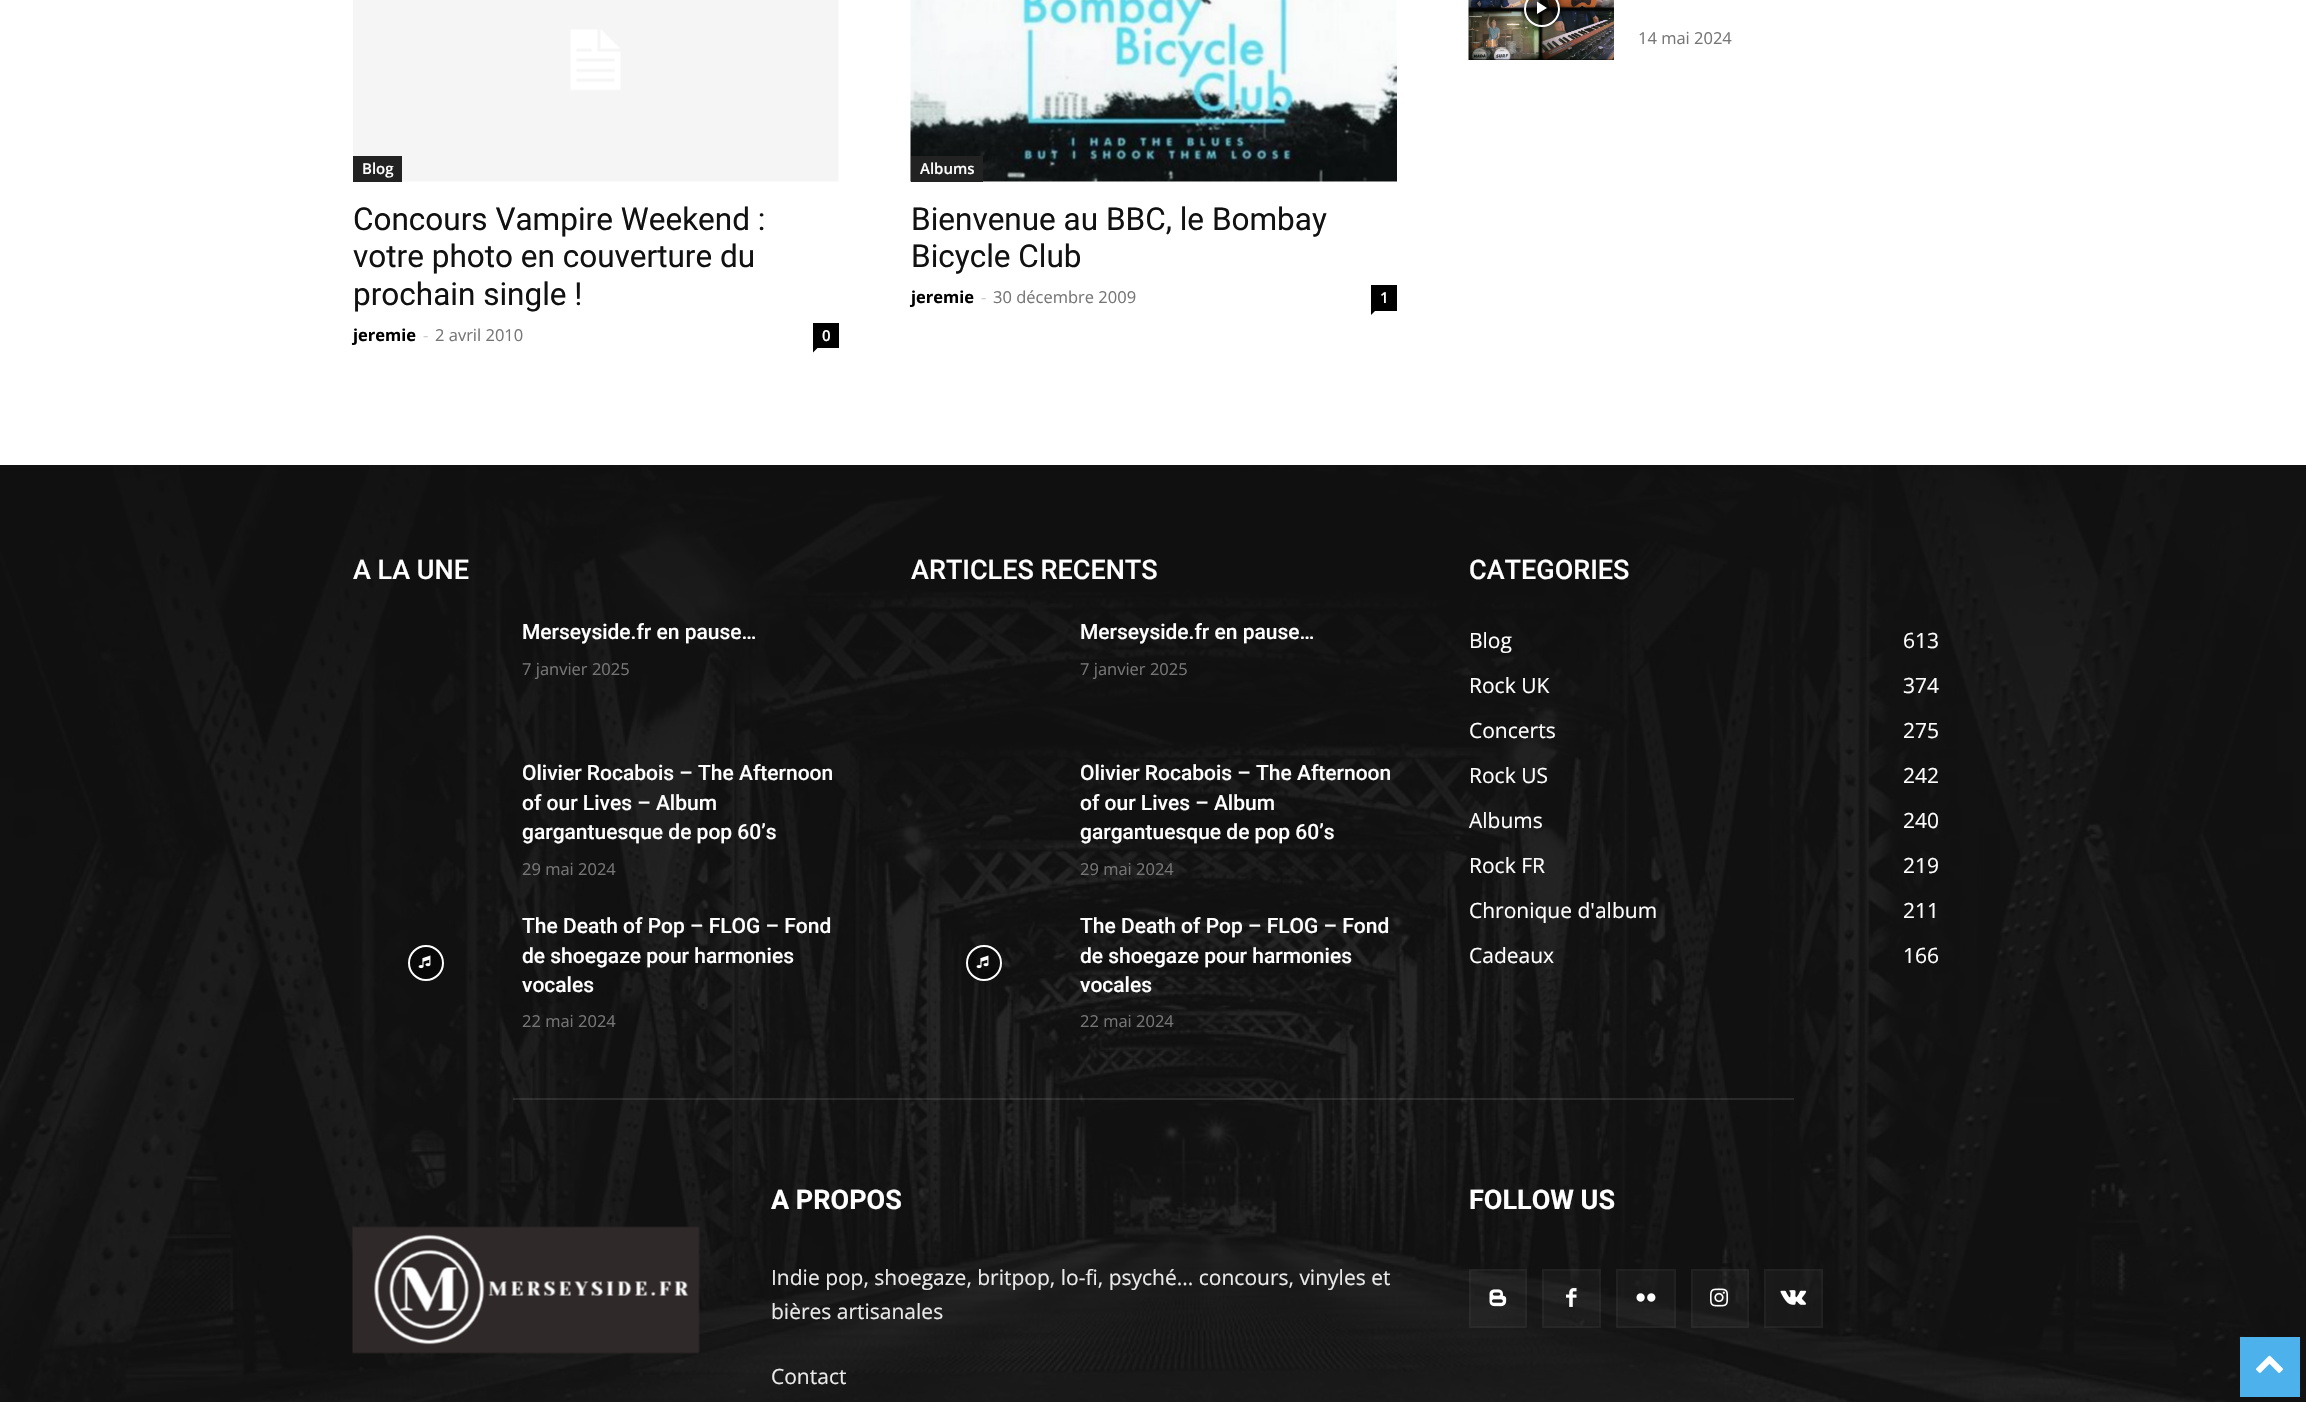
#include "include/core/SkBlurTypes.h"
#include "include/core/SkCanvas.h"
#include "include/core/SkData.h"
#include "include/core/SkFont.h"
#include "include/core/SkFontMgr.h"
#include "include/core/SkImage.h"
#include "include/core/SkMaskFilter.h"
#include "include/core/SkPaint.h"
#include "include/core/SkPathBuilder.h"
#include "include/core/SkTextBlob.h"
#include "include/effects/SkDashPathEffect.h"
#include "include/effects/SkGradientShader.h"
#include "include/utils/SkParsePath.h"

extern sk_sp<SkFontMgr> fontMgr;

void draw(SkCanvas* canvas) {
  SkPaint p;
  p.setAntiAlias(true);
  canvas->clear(SK_ColorWHITE);
  canvas->drawImageRect(SkImages::DeferredFromEncodedData(SkData::MakeFromFileName("images/1.png")), SkRect::MakeLTRB(1468, 0, 1614, 60), SkSamplingOptions());
  canvas->save();
  canvas->clipPath(SkPathBuilder(SkPathFillType::kEvenOdd).moveTo(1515, 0).lineTo(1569, 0).lineTo(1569, 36).lineTo(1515, 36).close().moveTo(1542, -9).cubicTo(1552, -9, 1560, -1, 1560, 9).cubicTo(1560, 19, 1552, 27, 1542, 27).cubicTo(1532, 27, 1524, 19, 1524, 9).cubicTo(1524, -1, 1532, -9, 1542, -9).close().detach(), true);
  p.setColor(SkColorSetARGB(102, 0, 0, 0));
  p.setMaskFilter(SkMaskFilter::MakeBlur(kNormal_SkBlurStyle, 2.5f));
  canvas->drawRoundRect(SkRect::MakeLTRB(1524, -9, 1560, 27), 18, 18, p);
  p.setMaskFilter(nullptr);
  canvas->restore();
  p.setColor(SkColorSetARGB(122, 0, 0, 0));
  canvas->drawCircle(1542, 9, 17, p);
  p.setStyle(SkPaint::kStroke_Style);
  p.setStrokeWidth(2);
  p.setColor(SK_ColorWHITE);
  canvas->drawCircle(1542, 9, 17, p);
  p.setStyle(SkPaint::kFill_Style);
  canvas->drawPath(SkPathBuilder().moveTo(1537, 1.5f).lineTo(1537, 14).lineTo(1547, 8).close().detach(), p);
  canvas->drawImageRect(SkImages::DeferredFromEncodedData(SkData::MakeFromFileName("images/2.png")), SkRect::MakeLTRB(353, 0, 839, 182), SkSamplingOptions());
  p.setColor(SkColorSetRGB(34, 34, 34));
  canvas->drawRect(SkRect::MakeLTRB(353, 156, 402, 182), p);
  p.setColor(SK_ColorBLACK);
  canvas->drawRect(SkRect::MakeLTRB(813, 323, 839, 348), p);
  canvas->drawPath(SkPathBuilder().moveTo(813, 348).lineTo(817.5f, 348).lineTo(813, 352.5f).close().detach(), p);
  canvas->drawImageRect(SkImages::DeferredFromEncodedData(SkData::MakeFromFileName("images/3.png")), SkRect::MakeLTRB(910, 0, 1397, 182), SkSamplingOptions());
  p.setColor(SkColorSetRGB(34, 34, 34));
  canvas->drawRect(SkRect::MakeLTRB(911, 156, 983, 182), p);
  p.setColor(SK_ColorBLACK);
  canvas->drawRect(SkRect::MakeLTRB(1371, 285, 1397, 311), p);
  canvas->drawPath(SkPathBuilder().moveTo(1371, 310.5f).lineTo(1375.5f, 310.5f).lineTo(1371, 315).close().detach(), p);
  p.setColor(SkColorSetRGB(17, 17, 17));
  canvas->drawRect(SkRect::MakeLTRB(0, 465, 2306, 1402), p);
  canvas->drawImageRect(SkImages::DeferredFromEncodedData(SkData::MakeFromFileName("images/4.png")), SkRect::MakeLTRB(0, 465, 2306, 1402), SkSamplingOptions());
  p.setColor(SkColorSetRGB(8, 8, 8));
  canvas->drawCircle(426, 963, 17, p);
  p.setStyle(SkPaint::kStroke_Style);
  p.setColor(SK_ColorWHITE);
  canvas->drawCircle(426, 963, 17, p);
  canvas->drawImageRect(SkImages::DeferredFromEncodedData(SkData::MakeFromFileName("images/5.png")), SkRect::MakeLTRB(418, 955, 431, 969), SkSamplingOptions());
  p.setStyle(SkPaint::kFill_Style);
  p.setColor(SkColorSetARGB(122, 0, 0, 0));
  canvas->drawCircle(984, 963, 17, p);
  p.setStyle(SkPaint::kStroke_Style);
  p.setColor(SK_ColorWHITE);
  canvas->drawCircle(984, 963, 17, p);
  canvas->drawImageRect(SkImages::DeferredFromEncodedData(SkData::MakeFromFileName("images/6.png")), SkRect::MakeLTRB(976, 955, 989, 969), SkSamplingOptions());
  p.setStyle(SkPaint::kFill_Style);
  p.setColor(SkColorSetARGB(26, 255, 255, 255));
  canvas->drawRect(SkRect::MakeLTRB(513, 1098, 1794, 1100), p);
  p.setColor(SkColorSetARGB(8, 255, 255, 255));
  canvas->drawRect(SkRect::MakeLTRB(1469, 1269, 1527, 1328), p);
  p.setStyle(SkPaint::kStroke_Style);
  canvas->drawRect(SkRect::MakeLTRB(1470, 1270, 1526, 1327), p);
  canvas->drawImageRect(SkImages::DeferredFromEncodedData(SkData::MakeFromFileName("images/7.png")), SkRect::MakeLTRB(1489, 1289, 1507, 1307), SkSamplingOptions());
  p.setStyle(SkPaint::kFill_Style);
  canvas->drawRect(SkRect::MakeLTRB(1542, 1269, 1601, 1328), p);
  p.setStyle(SkPaint::kStroke_Style);
  canvas->drawRect(SkRect::MakeLTRB(1543, 1270, 1600, 1327), p);
  canvas->drawImageRect(SkImages::DeferredFromEncodedData(SkData::MakeFromFileName("images/8.png")), SkRect::MakeLTRB(1566, 1288, 1577, 1307), SkSamplingOptions());
  p.setStyle(SkPaint::kFill_Style);
  canvas->drawRect(SkRect::MakeLTRB(1616, 1269, 1676, 1328), p);
  p.setStyle(SkPaint::kStroke_Style);
  canvas->drawRect(SkRect::MakeLTRB(1617, 1270, 1675, 1327), p);
  canvas->drawImageRect(SkImages::DeferredFromEncodedData(SkData::MakeFromFileName("images/9.png")), SkRect::MakeLTRB(1636, 1293, 1656, 1302), SkSamplingOptions());
  p.setStyle(SkPaint::kFill_Style);
  canvas->drawRect(SkRect::MakeLTRB(1691, 1269, 1749, 1328), p);
  p.setStyle(SkPaint::kStroke_Style);
  canvas->drawRect(SkRect::MakeLTRB(1692, 1270, 1748, 1327), p);
  canvas->drawImageRect(SkImages::DeferredFromEncodedData(SkData::MakeFromFileName("images/10.png")), SkRect::MakeLTRB(1710, 1288, 1728, 1307), SkSamplingOptions());
  p.setStyle(SkPaint::kFill_Style);
  canvas->drawRect(SkRect::MakeLTRB(1764, 1269, 1823, 1328), p);
  p.setStyle(SkPaint::kStroke_Style);
  canvas->drawRect(SkRect::MakeLTRB(1765, 1270, 1822, 1327), p);
  canvas->drawImageRect(SkImages::DeferredFromEncodedData(SkData::MakeFromFileName("images/11.png")), SkRect::MakeLTRB(1780, 1290, 1807, 1305), SkSamplingOptions());
  canvas->drawImageRect(SkImages::DeferredFromEncodedData(SkData::MakeFromFileName("images/12.png")), SkRect::MakeLTRB(352, 1226, 700, 1354), SkSamplingOptions());
  p.setStyle(SkPaint::kFill_Style);
  p.setColor(SkColorSetRGB(77, 178, 236));
  canvas->drawRect(SkRect::MakeLTRB(2240, 1337, 2300, 1397), p);
  canvas->drawImageRect(SkImages::DeferredFromEncodedData(SkData::MakeFromFileName("images/13.png")), SkRect::MakeLTRB(2256, 1355, 2283, 1373), SkSamplingOptions());
  SkFont font1(fontMgr->matchFamilyStyle("Open Sans", SkFontStyle::Normal()), 16.5f);
  font1.setSubpixel(true);
  p.setColor(SkColorSetRGB(118, 118, 118));
  canvas->drawString("14 mai 2024", 1638, 44, font1, p);
  SkFont font2(fontMgr->matchFamilyStyle("Open Sans", SkFontStyle(600, SkFontStyle::kNormal_Width, SkFontStyle::kUpright_Slant)), 15);
  font2.setSubpixel(true);
  p.setColor(SK_ColorWHITE);
  canvas->drawString("Blog", 362, 174, font2, p);
  SkFont font3(fontMgr->matchFamilyStyle("Roboto", SkFontStyle::Normal()), 31.5f);
  font3.setSubpixel(true);
  p.setColor(SkColorSetRGB(17, 17, 17));
  canvas->drawString("Concours Vampire Weekend :", 353, 230, font3, p);
  canvas->drawString("votre photo en couverture du", 353, 267, font3, p);
  canvas->drawString("prochain single !", 353, 305, font3, p);
  SkFont font4(fontMgr->matchFamilyStyle("Open Sans", SkFontStyle::Bold()), 16.5f);
  font4.setSubpixel(true);
  p.setColor(SK_ColorBLACK);
  canvas->drawString("jeremie", 353, 341, font4, p);
  p.setColor(SkColorSetRGB(204, 204, 204));
  canvas->drawString("-", 423, 341, font1, p);
  p.setColor(SkColorSetRGB(118, 118, 118));
  canvas->drawString("2 avril 2010", 435, 341, font1, p);
  p.setColor(SK_ColorWHITE);
  canvas->drawString("0", 822, 341, font2, p);
  canvas->drawString("Albums", 920, 174, font2, p);
  p.setColor(SkColorSetRGB(17, 17, 17));
  canvas->drawString("Bienvenue au BBC, le Bombay", 911, 230, font3, p);
  canvas->drawString("Bicycle Club", 911, 267, font3, p);
  p.setColor(SK_ColorBLACK);
  canvas->drawString("jeremie", 911, 303, font4, p);
  p.setColor(SkColorSetRGB(204, 204, 204));
  canvas->drawString("-", 981, 303, font1, p);
  p.setColor(SkColorSetRGB(118, 118, 118));
  canvas->drawString("30 décembre 2009", 993, 303, font1, p);
  p.setColor(SK_ColorWHITE);
  canvas->drawString("1", 1380, 303, font2, p);
  SkFont font5(fontMgr->matchFamilyStyle("Roboto", SkFontStyle(500, SkFontStyle::kNormal_Width, SkFontStyle::kUpright_Slant)), 27);
  font5.setSubpixel(true);
  canvas->drawString("A LA UNE", 353, 579, font5, p);
  SkFont font6(fontMgr->matchFamilyStyle("Roboto", SkFontStyle(500, SkFontStyle::kNormal_Width, SkFontStyle::kUpright_Slant)), 21);
  font6.setSubpixel(true);
  canvas->drawString("Merseyside.fr en pause…", 522, 639, font6, p);
  p.setColor(SkColorSetRGB(118, 118, 118));
  canvas->drawString("7 janvier 2025", 522, 675, font1, p);
  p.setColor(SK_ColorWHITE);
  canvas->drawString("Olivier Rocabois – The Afternoon", 522, 780, font6, p);
  canvas->drawString("of our Lives – Album", 522, 810, font6, p);
  canvas->drawString("gargantuesque de pop 60’s", 522, 839, font6, p);
  p.setColor(SkColorSetRGB(118, 118, 118));
  canvas->drawString("29 mai 2024", 522, 875, font1, p);
  p.setColor(SK_ColorWHITE);
  canvas->drawString("The Death of Pop – FLOG – Fond", 522, 933, font6, p);
  canvas->drawString("de shoegaze pour harmonies", 522, 963, font6, p);
  canvas->drawString("vocales", 522, 992, font6, p);
  p.setColor(SkColorSetRGB(118, 118, 118));
  canvas->drawString("22 mai 2024", 522, 1027, font1, p);
  p.setColor(SK_ColorWHITE);
  canvas->drawString("ARTICLES RECENTS", 911, 579, font5, p);
  canvas->drawString("Merseyside.fr en pause…", 1080, 639, font6, p);
  p.setColor(SkColorSetRGB(118, 118, 118));
  canvas->drawString("7 janvier 2025", 1080, 675, font1, p);
  p.setColor(SK_ColorWHITE);
  canvas->drawString("Olivier Rocabois – The Afternoon", 1080, 780, font6, p);
  canvas->drawString("of our Lives – Album", 1080, 810, font6, p);
  canvas->drawString("gargantuesque de pop 60’s", 1080, 839, font6, p);
  p.setColor(SkColorSetRGB(118, 118, 118));
  canvas->drawString("29 mai 2024", 1080, 875, font1, p);
  p.setColor(SK_ColorWHITE);
  canvas->drawString("The Death of Pop – FLOG – Fond", 1080, 933, font6, p);
  canvas->drawString("de shoegaze pour harmonies", 1080, 963, font6, p);
  canvas->drawString("vocales", 1080, 992, font6, p);
  p.setColor(SkColorSetRGB(118, 118, 118));
  canvas->drawString("22 mai 2024", 1080, 1027, font1, p);
  p.setColor(SK_ColorWHITE);
  canvas->drawString("CATEGORIES", 1469, 579, font5, p);
  SkFont font7(fontMgr->matchFamilyStyle("Open Sans", SkFontStyle::Normal()), 21);
  font7.setSubpixel(true);
  canvas->drawString("Blog", 1469, 648, font7, p);
  canvas->drawString("613", 1903, 648, font7, p);
  canvas->drawString("Rock UK", 1469, 693, font7, p);
  canvas->drawString("374", 1903, 693, font7, p);
  canvas->drawString("Concerts", 1469, 738, font7, p);
  canvas->drawString("275", 1903, 738, font7, p);
  canvas->drawString("Rock US", 1469, 783, font7, p);
  canvas->drawString("242", 1903, 783, font7, p);
  canvas->drawString("Albums", 1469, 828, font7, p);
  canvas->drawString("240", 1903, 828, font7, p);
  canvas->drawString("Rock FR", 1469, 873, font7, p);
  canvas->drawString("219", 1903, 873, font7, p);
  canvas->drawString("Chronique d'album", 1469, 918, font7, p);
  canvas->drawString("211", 1903, 918, font7, p);
  canvas->drawString("Cadeaux", 1469, 963, font7, p);
  canvas->drawString("166", 1903, 963, font7, p);
  SkFont font8(fontMgr->matchFamilyStyle("Roboto", SkFontStyle::Bold()), 27);
  font8.setSubpixel(true);
  canvas->drawString("A PROPOS", 771, 1209, font8, p);
  p.setColor(SkColorSetRGB(234, 234, 234));
  canvas->drawString("Indie pop, shoegaze, britpop, lo-fi, psyché... concours, vinyles et", 771, 1285, font7, p);
  canvas->drawString("bières artisanales", 771, 1319, font7, p);
  canvas->drawString("Contact", 771, 1384, font7, p);
  p.setColor(SK_ColorWHITE);
  canvas->drawString("FOLLOW US", 1469, 1209, font8, p);
}
